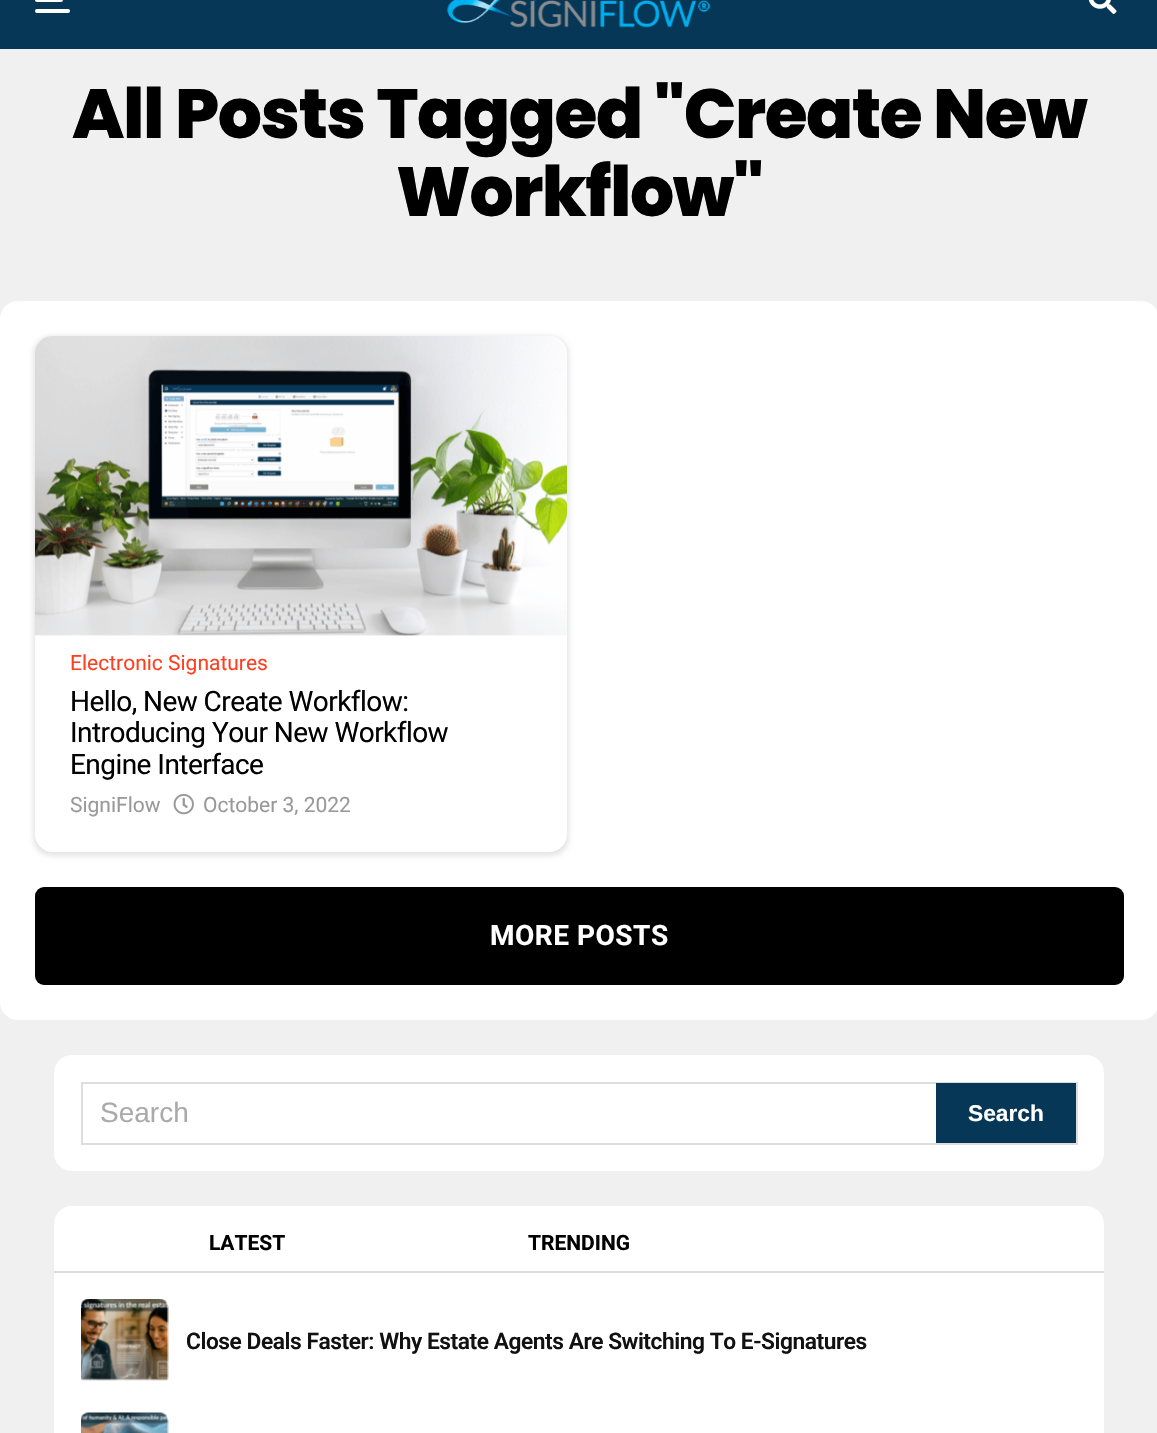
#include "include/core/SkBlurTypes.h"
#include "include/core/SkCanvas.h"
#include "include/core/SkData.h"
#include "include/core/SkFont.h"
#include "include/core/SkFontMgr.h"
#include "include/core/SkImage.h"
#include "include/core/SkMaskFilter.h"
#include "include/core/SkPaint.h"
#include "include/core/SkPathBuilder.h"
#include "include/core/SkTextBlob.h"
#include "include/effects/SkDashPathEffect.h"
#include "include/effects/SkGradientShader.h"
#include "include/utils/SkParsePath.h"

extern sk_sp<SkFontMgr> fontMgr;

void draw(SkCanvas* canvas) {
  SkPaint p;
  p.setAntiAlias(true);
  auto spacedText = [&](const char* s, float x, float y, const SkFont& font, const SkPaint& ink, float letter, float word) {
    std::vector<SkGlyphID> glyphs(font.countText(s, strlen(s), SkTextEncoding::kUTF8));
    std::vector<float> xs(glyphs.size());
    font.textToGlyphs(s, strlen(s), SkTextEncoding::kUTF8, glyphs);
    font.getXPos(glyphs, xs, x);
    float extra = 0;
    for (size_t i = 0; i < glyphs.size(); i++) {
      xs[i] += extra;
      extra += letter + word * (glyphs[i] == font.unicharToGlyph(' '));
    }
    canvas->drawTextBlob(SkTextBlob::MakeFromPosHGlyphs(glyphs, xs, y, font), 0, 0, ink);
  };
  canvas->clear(SkColorSetRGB(240, 240, 240));
  p.setColor(SkColorSetRGB(7, 55, 86));
  canvas->drawRect(SkRect::MakeLTRB(0, 0, 1157, 49), p);
  p.setColor(SK_ColorWHITE);
  canvas->drawRoundRect(SkRect::MakeLTRB(35, -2, 63, 2), 2, 2, p);
  canvas->drawRoundRect(SkRect::MakeLTRB(35, 9, 70, 13), 2, 2, p);
  canvas->drawImageRect(SkImages::DeferredFromEncodedData(SkData::MakeFromFileName("images/1.png")), SkRect::MakeLTRB(446, 0, 711, 28), SkSamplingOptions());
  canvas->drawImageRect(SkImages::DeferredFromEncodedData(SkData::MakeFromFileName("images/2.png")), SkRect::MakeLTRB(1088, 0, 1117, 14), SkSamplingOptions());
  canvas->drawRoundRect(SkRect::MakeLTRB(0, 301, 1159, 1020), 18, 18, p);
  p.setColor(SkColorSetARGB(26, 0, 0, 0));
  p.setMaskFilter(SkMaskFilter::MakeBlur(kNormal_SkBlurStyle, 2.5f));
  canvas->drawRoundRect(SkRect::MakeLTRB(33, 336, 569, 856), 19, 19, p);
  p.setMaskFilter(nullptr);
  p.setColor(SK_ColorWHITE);
  canvas->drawRoundRect(SkRect::MakeLTRB(35, 336, 567, 852), 18, 18, p);
  canvas->drawImageRect(SkImages::DeferredFromEncodedData(SkData::MakeFromFileName("images/3.png")), SkRect::MakeLTRB(35, 336, 567, 636), SkSamplingOptions());
  canvas->drawImageRect(SkImages::DeferredFromEncodedData(SkData::MakeFromFileName("images/4.png")), SkRect::MakeLTRB(173, 794, 194, 815), SkSamplingOptions());
  p.setColor(SK_ColorBLACK);
  canvas->drawRoundRect(SkRect::MakeLTRB(35, 887, 1124, 985), 9, 9, p);
  p.setColor(SK_ColorWHITE);
  canvas->drawRoundRect(SkRect::MakeLTRB(54, 1055, 1104, 1171), 18, 18, p);
  p.setStyle(SkPaint::kStroke_Style);
  p.setStrokeWidth(2);
  p.setColor(SkColorSetRGB(221, 221, 221));
  canvas->drawRect(SkRect::MakeLTRB(82, 1083, 1077, 1144), p);
  p.setStyle(SkPaint::kFill_Style);
  p.setColor(SkColorSetRGB(7, 55, 86));
  canvas->drawRect(SkRect::MakeLTRB(936, 1083, 1076, 1143), p);
  p.setColor(SK_ColorWHITE);
  canvas->drawRoundRect(SkRect::MakeLTRB(54, 1206, 1104, 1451), 18, 18, p);
  p.setColor(SkColorSetRGB(221, 221, 221));
  canvas->drawRect(SkRect::MakeLTRB(54, 1271, 1104, 1273), p);
  canvas->drawImageRect(SkImages::DeferredFromEncodedData(SkData::MakeFromFileName("images/5.png")), SkRect::MakeLTRB(81, 1299, 169, 1381), SkSamplingOptions());
  canvas->drawImageRect(SkImages::DeferredFromEncodedData(SkData::MakeFromFileName("images/6.png")), SkRect::MakeLTRB(81, 1412, 169, 1433), SkSamplingOptions());
  SkFont font1(fontMgr->matchFamilyStyle("Poppins", SkFontStyle(800, SkFontStyle::kNormal_Width, SkFontStyle::kUpright_Slant)), 69.5f);
  font1.setSubpixel(true);
  p.setColor(SK_ColorBLACK);
  spacedText("All Posts Tagged \"Create New", 72, 138, font1, p, -1.4f, 0);
  spacedText("Workflow\"", 396, 216, font1, p, -1.4f, 0);
  SkFont font2(fontMgr->matchFamilyStyle("Roboto", SkFontStyle::Normal()), 21);
  font2.setSubpixel(true);
  p.setColor(SkColorSetRGB(254, 64, 32));
  canvas->drawString("Electronic Signatures", 70, 670, font2, p);
  SkFont font3(fontMgr->matchFamilyStyle("Roboto", SkFontStyle::Normal()), 28);
  font3.setSubpixel(true);
  p.setColor(SK_ColorBLACK);
  spacedText("Hello, New Create Workflow:", 70, 711, font3, p, -0.55f, 0);
  spacedText("Introducing Your New Workflow", 70, 742, font3, p, -0.55f, 0);
  spacedText("Engine Interface", 70, 774, font3, p, -0.55f, 0);
  p.setColor(SkColorSetRGB(153, 153, 153));
  canvas->drawString("SigniFlow", 70, 812, font2, p);
  canvas->drawString("October 3, 2022", 203, 812, font2, p);
  SkFont font4(fontMgr->matchFamilyStyle("Roboto", SkFontStyle::Bold()), 28);
  font4.setSubpixel(true);
  p.setColor(SK_ColorWHITE);
  spacedText("MORE POSTS", 490, 945, font4, p, 0.5f, 0);
  SkFont font5(fontMgr->matchFamilyStyle("Liberation Sans", SkFontStyle::Normal()), 28);
  font5.setSubpixel(true);
  p.setColor(SkColorSetRGB(170, 170, 170));
  canvas->drawString("Search", 100, 1122, font5, p);
  SkFont font6(fontMgr->matchFamilyStyle("Liberation Sans", SkFontStyle::Bold()), 22.75f);
  font6.setSubpixel(true);
  p.setColor(SK_ColorWHITE);
  canvas->drawString("Search", 968, 1121, font6, p);
  SkFont font7(fontMgr->matchFamilyStyle("Roboto", SkFontStyle::Bold()), 21);
  font7.setSubpixel(true);
  p.setColor(SK_ColorBLACK);
  canvas->drawString("LATEST", 209, 1250, font7, p);
  canvas->drawString("TRENDING", 528, 1250, font7, p);
  SkFont font8(fontMgr->matchFamilyStyle("Roboto", SkFontStyle(600, SkFontStyle::kNormal_Width, SkFontStyle::kUpright_Slant)), 22.75f);
  font8.setSubpixel(true);
  p.setColor(SkColorSetRGB(17, 17, 17));
  spacedText("Close Deals Faster: Why Estate Agents Are Switching To E-Signatures", 186, 1349, font8, p, -0.45f, 0);
}
